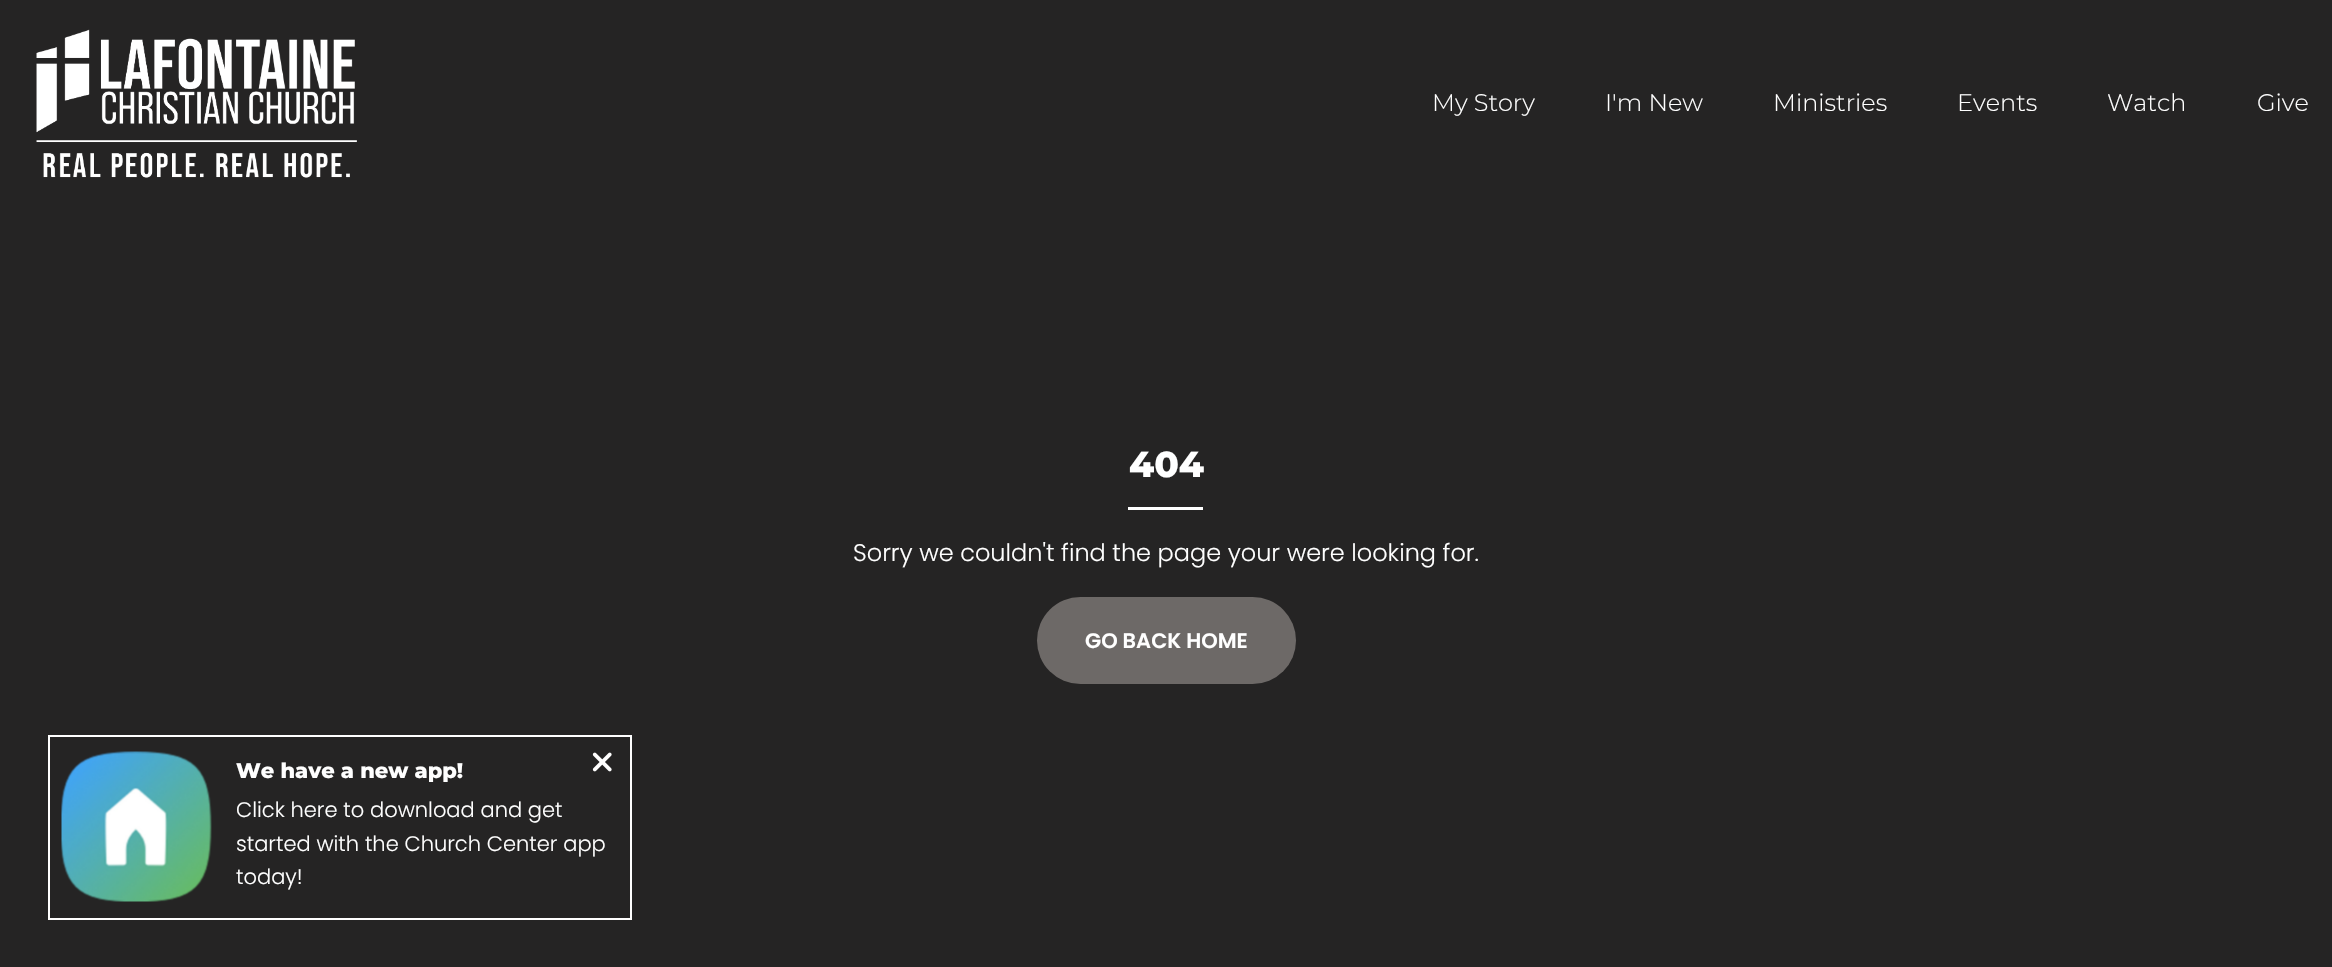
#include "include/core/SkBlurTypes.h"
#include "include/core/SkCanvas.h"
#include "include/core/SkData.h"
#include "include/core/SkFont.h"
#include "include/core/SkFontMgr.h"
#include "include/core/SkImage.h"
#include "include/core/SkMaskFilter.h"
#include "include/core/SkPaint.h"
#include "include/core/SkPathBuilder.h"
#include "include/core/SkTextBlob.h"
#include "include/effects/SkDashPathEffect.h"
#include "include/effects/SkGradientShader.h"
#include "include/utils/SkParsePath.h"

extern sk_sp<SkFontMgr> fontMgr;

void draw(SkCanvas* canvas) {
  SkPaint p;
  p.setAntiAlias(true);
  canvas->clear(SkColorSetRGB(37, 36, 36));
  canvas->drawImageRect(SkImages::DeferredFromEncodedData(SkData::MakeFromFileName("images/1.png")), SkRect::MakeLTRB(36, 29, 357, 178), SkSamplingOptions());
  p.setColor(SK_ColorWHITE);
  canvas->drawRect(SkRect::MakeLTRB(1128, 507, 1203, 510), p);
  p.setColor(SkColorSetRGB(109, 105, 103));
  canvas->drawRoundRect(SkRect::MakeLTRB(1037, 597, 1296, 684), 43.5f, 43.5f, p);
  p.setStyle(SkPaint::kStroke_Style);
  p.setStrokeWidth(2);
  p.setColor(SK_ColorWHITE);
  canvas->drawRect(SkRect::MakeLTRB(49, 736, 631, 919), p);
  canvas->drawImageRect(SkImages::DeferredFromEncodedData(SkData::MakeFromFileName("images/2.png")), SkRect::MakeLTRB(592, 752, 612, 772), SkSamplingOptions());
  canvas->drawImageRect(SkImages::DeferredFromEncodedData(SkData::MakeFromFileName("images/3.png")), SkRect::MakeLTRB(61, 751, 212, 902), SkSamplingOptions());
  SkFont font1(fontMgr->matchFamilyStyle("Montserrat", SkFontStyle(300, SkFontStyle::kNormal_Width, SkFontStyle::kUpright_Slant)), 24);
  font1.setSubpixel(true);
  p.setStyle(SkPaint::kFill_Style);
  canvas->drawString("My Story", 1432, 111, font1, p);
  canvas->drawString("I'm New", 1605, 111, font1, p);
  canvas->drawString("Ministries", 1773, 111, font1, p);
  canvas->drawString("Events", 1957, 111, font1, p);
  canvas->drawString("Watch", 2107, 111, font1, p);
  canvas->drawString("Give", 2257, 111, font1, p);
  SkFont font2(fontMgr->matchFamilyStyle("Montserrat", SkFontStyle(800, SkFontStyle::kNormal_Width, SkFontStyle::kUpright_Slant)), 36);
  font2.setSubpixel(true);
  canvas->drawString("404", 1129, 477, font2, p);
  SkFont font3(fontMgr->matchFamilyStyle("Poppins", SkFontStyle(300, SkFontStyle::kNormal_Width, SkFontStyle::kUpright_Slant)), 24);
  font3.setSubpixel(true);
  canvas->drawString("Sorry we couldn't find the page your were looking for.", 853, 561, font3, p);
  SkFont font4(fontMgr->matchFamilyStyle("Poppins", SkFontStyle(600, SkFontStyle::kNormal_Width, SkFontStyle::kUpright_Slant)), 21);
  font4.setSubpixel(true);
  canvas->drawString("GO BACK HOME", 1085, 648, font4, p);
  SkFont font5(fontMgr->matchFamilyStyle("Montserrat", SkFontStyle(800, SkFontStyle::kNormal_Width, SkFontStyle::kUpright_Slant)), 21);
  font5.setSubpixel(true);
  canvas->drawString("We have a new app!", 236, 778, font5, p);
  SkFont font6(fontMgr->matchFamilyStyle("Poppins", SkFontStyle(300, SkFontStyle::kNormal_Width, SkFontStyle::kUpright_Slant)), 21);
  font6.setSubpixel(true);
  canvas->drawString("Click here to download and get", 236, 817, font6, p);
  canvas->drawString("started with the Church Center app", 236, 851, font6, p);
  canvas->drawString("today!", 236, 884, font6, p);
}
